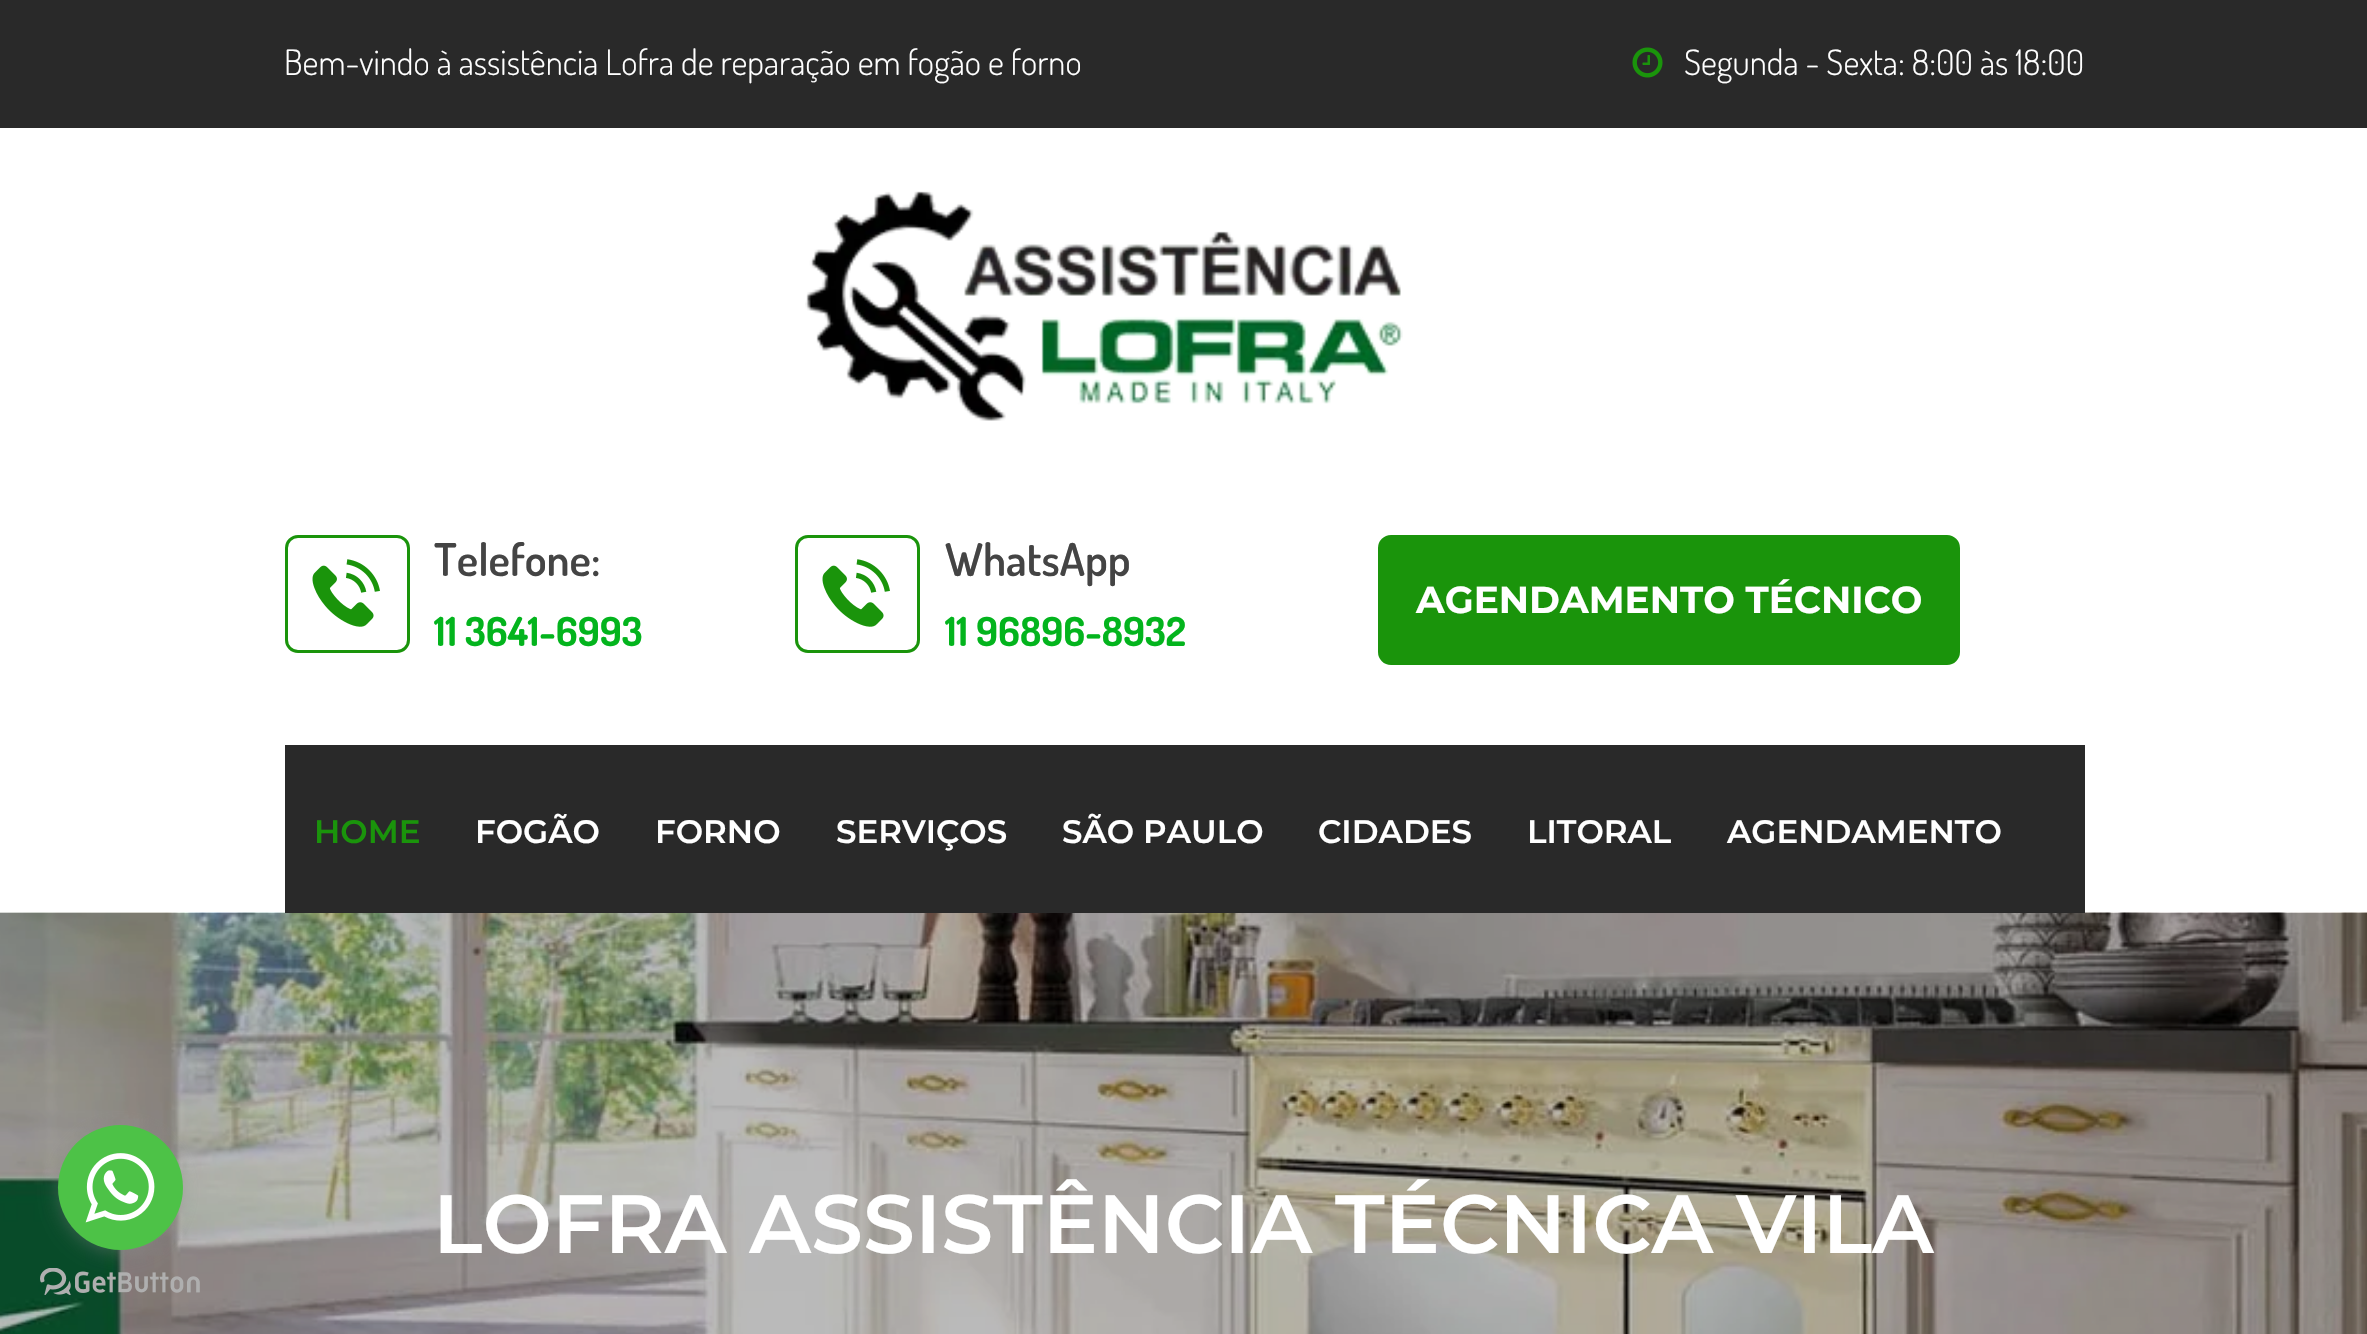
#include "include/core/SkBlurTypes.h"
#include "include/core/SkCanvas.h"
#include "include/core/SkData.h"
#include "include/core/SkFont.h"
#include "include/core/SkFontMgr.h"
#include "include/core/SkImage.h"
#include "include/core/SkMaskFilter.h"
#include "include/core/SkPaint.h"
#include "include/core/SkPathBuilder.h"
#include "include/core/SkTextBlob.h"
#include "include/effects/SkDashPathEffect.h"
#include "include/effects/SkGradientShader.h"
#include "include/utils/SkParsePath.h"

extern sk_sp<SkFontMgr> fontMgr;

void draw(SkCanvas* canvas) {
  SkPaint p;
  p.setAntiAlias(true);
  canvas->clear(SK_ColorWHITE);
  canvas->drawImageRect(SkImages::DeferredFromEncodedData(SkData::MakeFromFileName("images/6.png")), SkRect::MakeLTRB(0, 912, 2367, 1334), SkSamplingOptions());
  canvas->drawImageRect(SkImages::DeferredFromEncodedData(SkData::MakeFromFileName("images/2.png")), SkRect::MakeLTRB(40, 1268, 200, 1295), SkSamplingOptions());
  p.setColor(SkColorSetARGB(102, 136, 136, 136));
  p.setMaskFilter(SkMaskFilter::MakeBlur(kNormal_SkBlurStyle, 9));
  canvas->drawRoundRect(SkRect::MakeLTRB(58, 1128, 183, 1253), 62.5f, 62.5f, p);
  p.setMaskFilter(nullptr);
  p.setColor(SkColorSetRGB(77, 194, 71));
  canvas->drawCircle(120.5f, 1187.5f, 62.5f, p);
  canvas->drawImageRect(SkImages::DeferredFromEncodedData(SkData::MakeFromFileName("images/1.png")), SkRect::MakeLTRB(85, 1153, 155, 1223), SkSamplingOptions());
  p.setColor(SkColorSetRGB(41, 41, 41));
  canvas->drawRect(SkRect::MakeLTRB(0, 0, 2367, 128), p);
  canvas->drawImageRect(SkImages::DeferredFromEncodedData(SkData::MakeFromFileName("images/3.png")), SkRect::MakeLTRB(1632, 47, 1663, 78), SkSamplingOptions());
  canvas->drawImageRect(SkImages::DeferredFromEncodedData(SkData::MakeFromFileName("images/4.png")), SkRect::MakeLTRB(805, 191, 1403, 421), SkSamplingOptions());
  p.setStyle(SkPaint::kStroke_Style);
  p.setStrokeWidth(3);
  p.setColor(SkColorSetRGB(26, 148, 11));
  canvas->drawRoundRect(SkRect::MakeLTRB(286.5f, 536.5f, 408.5f, 651.5f), 11.5f, 11.5f, p);
  canvas->drawImageRect(SkImages::DeferredFromEncodedData(SkData::MakeFromFileName("images/5.png")), SkRect::MakeLTRB(312, 559, 380, 627), SkSamplingOptions());
  canvas->drawRoundRect(SkRect::MakeLTRB(796.5f, 536.5f, 918.5f, 651.5f), 11.5f, 11.5f, p);
  canvas->drawImageRect(SkImages::DeferredFromEncodedData(SkData::MakeFromFileName("images/5.png")), SkRect::MakeLTRB(822, 559, 890, 627), SkSamplingOptions());
  p.setStyle(SkPaint::kFill_Style);
  canvas->drawRoundRect(SkRect::MakeLTRB(1379.5f, 536.5f, 1958.5f, 663.5f), 11.5f, 11.5f, p);
  p.setStyle(SkPaint::kStroke_Style);
  canvas->drawRoundRect(SkRect::MakeLTRB(1379.5f, 536.5f, 1958.5f, 663.5f), 11.5f, 11.5f, p);
  p.setStyle(SkPaint::kFill_Style);
  p.setColor(SkColorSetRGB(41, 41, 41));
  canvas->drawRect(SkRect::MakeLTRB(285, 745, 2085, 913), p);
  SkFont font1(fontMgr->matchFamilyStyle("Dosis", SkFontStyle(300, SkFontStyle::kNormal_Width, SkFontStyle::kUpright_Slant)), 35);
  font1.setSubpixel(true);
  p.setColor(SK_ColorWHITE);
  canvas->drawString("Bem-vindo à assistência Lofra de reparação em fogão e forno", 284, 75, font1, p);
  canvas->drawString("Segunda - Sexta: 8:00 às 18:00", 1684, 75, font1, p);
  SkFont font2(fontMgr->matchFamilyStyle("Dosis", SkFontStyle(600, SkFontStyle::kNormal_Width, SkFontStyle::kUpright_Slant)), 45);
  font2.setSubpixel(true);
  p.setColor(SkColorSetRGB(68, 68, 68));
  canvas->drawString("Telefone:", 434, 576, font2, p);
  SkFont font3(fontMgr->matchFamilyStyle("Dosis", SkFontStyle::Bold()), 40);
  font3.setSubpixel(true);
  p.setColor(SkColorSetRGB(3, 180, 29));
  canvas->drawString("11 3641-6993", 434, 646, font3, p);
  p.setColor(SkColorSetRGB(68, 68, 68));
  canvas->drawString("WhatsApp", 945, 576, font2, p);
  p.setColor(SkColorSetRGB(3, 180, 29));
  canvas->drawString("11 96896-8932", 945, 646, font3, p);
  SkFont font4(fontMgr->matchFamilyStyle("Montserrat", SkFontStyle::Bold()), 37.5f);
  font4.setSubpixel(true);
  p.setColor(SK_ColorWHITE);
  canvas->drawString("AGENDAMENTO TÉCNICO", 1416, 613, font4, p);
  SkFont font5(fontMgr->matchFamilyStyle("Montserrat", SkFontStyle(600, SkFontStyle::kNormal_Width, SkFontStyle::kUpright_Slant)), 32.5f);
  font5.setSubpixel(true);
  p.setColor(SkColorSetRGB(26, 148, 11));
  canvas->drawString("HOME", 314, 843, font5, p);
  p.setColor(SK_ColorWHITE);
  canvas->drawString("FOGÃO", 475, 843, font5, p);
  canvas->drawString("FORNO", 655, 843, font5, p);
  canvas->drawString("SERVIÇOS", 836, 843, font5, p);
  canvas->drawString("SÃO PAULO", 1062, 843, font5, p);
  canvas->drawString("CIDADES", 1318, 843, font5, p);
  canvas->drawString("LITORAL", 1527, 843, font5, p);
  canvas->drawString("AGENDAMENTO", 1727, 843, font5, p);
  SkFont font6(fontMgr->matchFamilyStyle("Montserrat", SkFontStyle(600, SkFontStyle::kNormal_Width, SkFontStyle::kUpright_Slant)), 82.5f);
  font6.setSubpixel(true);
  canvas->drawString("LOFRA ASSISTÊNCIA TÉCNICA VILA", 433, 1253, font6, p);
}
